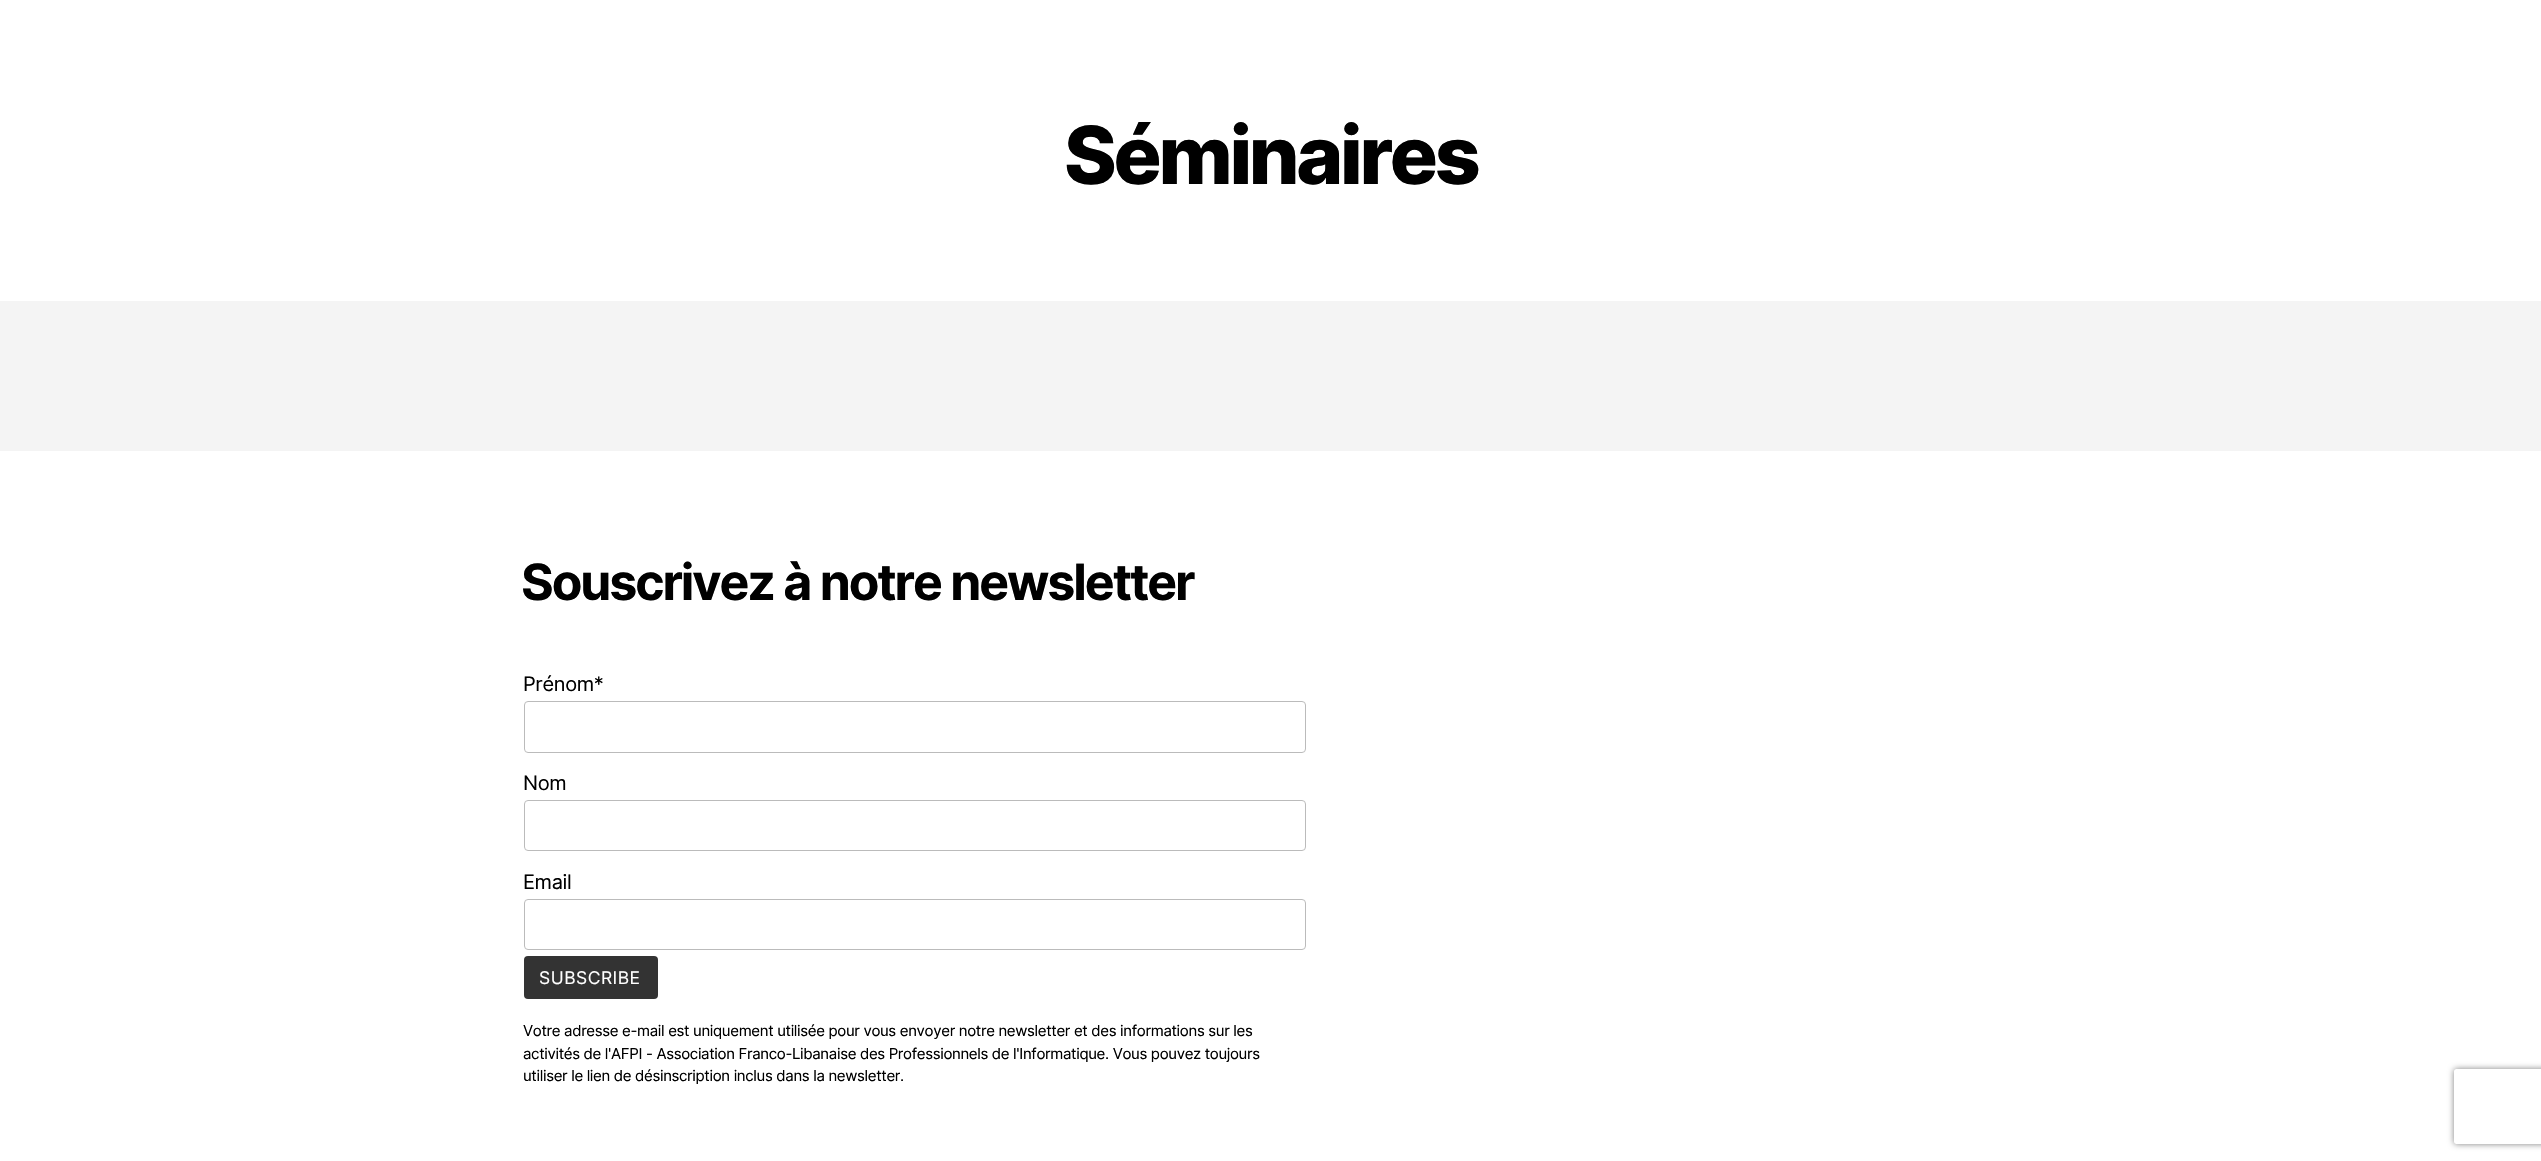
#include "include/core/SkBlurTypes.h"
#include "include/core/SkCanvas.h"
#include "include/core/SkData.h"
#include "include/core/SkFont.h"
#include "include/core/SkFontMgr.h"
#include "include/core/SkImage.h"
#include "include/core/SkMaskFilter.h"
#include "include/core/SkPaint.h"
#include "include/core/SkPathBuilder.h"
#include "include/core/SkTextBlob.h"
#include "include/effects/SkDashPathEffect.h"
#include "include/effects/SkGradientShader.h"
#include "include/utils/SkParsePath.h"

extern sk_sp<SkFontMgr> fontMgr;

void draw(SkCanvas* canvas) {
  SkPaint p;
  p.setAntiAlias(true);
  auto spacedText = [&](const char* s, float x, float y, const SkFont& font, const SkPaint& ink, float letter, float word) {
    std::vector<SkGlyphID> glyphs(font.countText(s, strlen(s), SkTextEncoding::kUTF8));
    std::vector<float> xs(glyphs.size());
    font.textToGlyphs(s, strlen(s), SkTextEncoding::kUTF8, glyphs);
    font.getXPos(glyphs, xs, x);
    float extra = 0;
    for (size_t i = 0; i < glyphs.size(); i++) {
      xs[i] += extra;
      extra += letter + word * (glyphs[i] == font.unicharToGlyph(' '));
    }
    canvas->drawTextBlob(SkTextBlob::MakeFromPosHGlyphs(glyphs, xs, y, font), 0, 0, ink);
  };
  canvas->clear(SkColorSetRGB(244, 244, 244));
  p.setColor(SK_ColorWHITE);
  canvas->drawRect(SkRect::MakeLTRB(0, 0, 2541, 301), p);
  canvas->drawRect(SkRect::MakeLTRB(0, 451, 2541, 1161), p);
  p.setStyle(SkPaint::kStroke_Style);
  p.setStrokeWidth(1);
  p.setColor(SkColorSetRGB(187, 187, 187));
  canvas->drawRoundRect(SkRect::MakeLTRB(524.5f, 701.5f, 1305.5f, 752.5f), 3.5f, 3.5f, p);
  canvas->drawRoundRect(SkRect::MakeLTRB(524.5f, 800.5f, 1305.5f, 850.5f), 3.5f, 3.5f, p);
  canvas->drawRoundRect(SkRect::MakeLTRB(524.5f, 899.5f, 1305.5f, 949.5f), 3.5f, 3.5f, p);
  p.setStyle(SkPaint::kFill_Style);
  p.setColor(SkColorSetRGB(51, 51, 51));
  canvas->drawRoundRect(SkRect::MakeLTRB(524, 956, 658, 999), 4, 4, p);
  canvas->save();
  canvas->clipPath(SkPathBuilder(SkPathFillType::kEvenOdd).moveTo(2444, 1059).lineTo(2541, 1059).lineTo(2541, 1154).lineTo(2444, 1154).close().moveTo(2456.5f, 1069).lineTo(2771.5f, 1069).cubicTo(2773, 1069, 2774, 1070, 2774, 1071.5f).lineTo(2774, 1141.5f).cubicTo(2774, 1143, 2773, 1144, 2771.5f, 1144).lineTo(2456.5f, 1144).cubicTo(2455, 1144, 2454, 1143, 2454, 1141.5f).lineTo(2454, 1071.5f).cubicTo(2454, 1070, 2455, 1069, 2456.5f, 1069).close().detach(), true);
  p.setColor(SkColorSetRGB(128, 128, 128));
  p.setMaskFilter(SkMaskFilter::MakeBlur(kNormal_SkBlurStyle, 3));
  canvas->drawRoundRect(SkRect::MakeLTRB(2454, 1069, 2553, 1144), 2.5f, 2.5f, p);
  p.setMaskFilter(nullptr);
  canvas->restore();
  SkFont font1(fontMgr->matchFamilyStyle("Inter", SkFontStyle(800, SkFontStyle::kNormal_Width, SkFontStyle::kUpright_Slant)), 80);
  font1.setSubpixel(true);
  p.setColor(SK_ColorBLACK);
  spacedText("Séminaires", 1064, 184, font1, p, -3.25f, 0);
  SkFont font2(fontMgr->matchFamilyStyle("Inter", SkFontStyle::Bold()), 50);
  font2.setSubpixel(true);
  spacedText("Souscrivez à notre newsletter", 521, 600, font2, p, -2.1f, 0);
  SkFont font3(fontMgr->matchFamilyStyle("Inter", SkFontStyle::Normal()), 20);
  font3.setSubpixel(true);
  spacedText("Prénom*", 523, 691, font3, p, -0.34f, 0);
  spacedText("Nom", 523, 790, font3, p, -0.34f, 0);
  spacedText("Email", 523, 889, font3, p, -0.34f, 0);
  SkFont font4(fontMgr->matchFamilyStyle("Inter", SkFontStyle::Normal()), 17.5f);
  font4.setSubpixel(true);
  p.setColor(SK_ColorWHITE);
  spacedText("SUBSCRIBE", 539, 984, font4, p, 0.5f, 0);
  SkFont font5(fontMgr->matchFamilyStyle("Inter", SkFontStyle::Normal()), 15);
  font5.setSubpixel(true);
  p.setColor(SK_ColorBLACK);
  spacedText("Votre adresse e-mail est uniquement utilisée pour vous envoyer notre newsletter et des informations sur les", 523, 1036, font5, p, -0.34f, 0);
  spacedText("activités de l'AFPI - Association Franco-Libanaise des Professionnels de l'Informatique. Vous pouvez toujours", 523, 1059, font5, p, -0.34f, 0);
  spacedText("utiliser le lien de désinscription inclus dans la newsletter.", 523, 1081, font5, p, -0.34f, 0);
}
